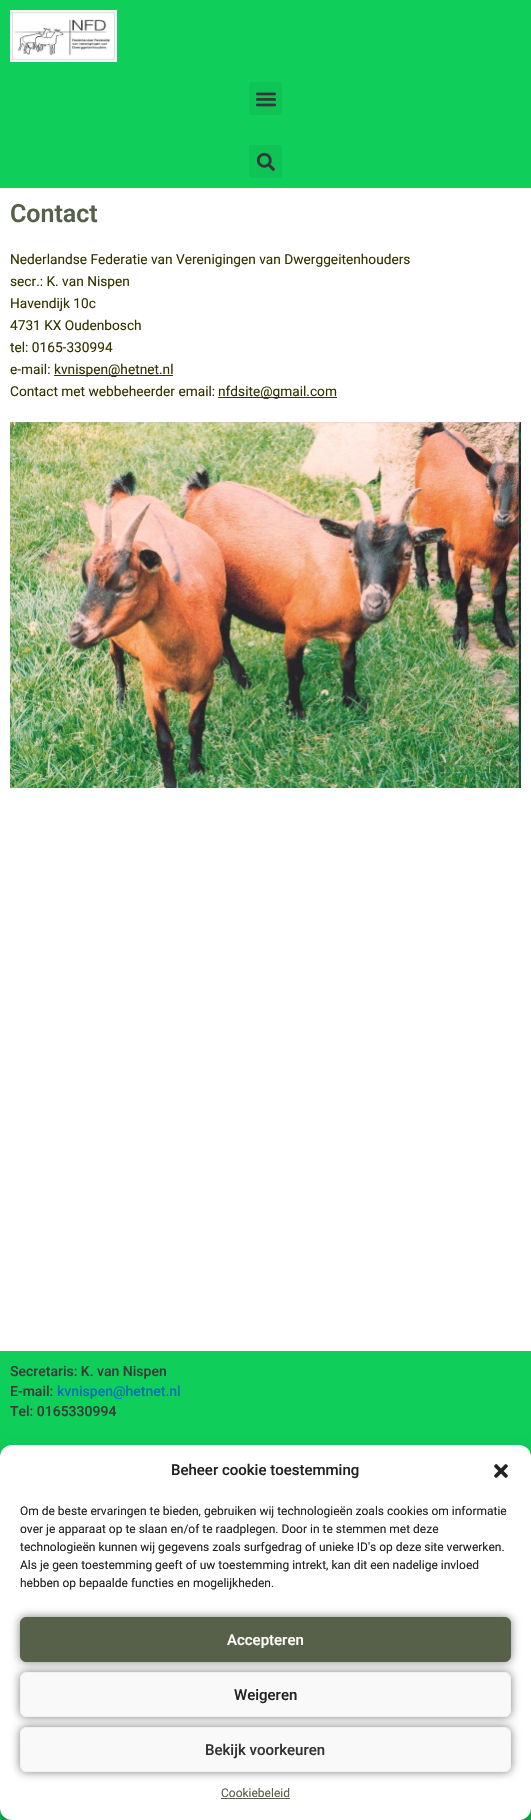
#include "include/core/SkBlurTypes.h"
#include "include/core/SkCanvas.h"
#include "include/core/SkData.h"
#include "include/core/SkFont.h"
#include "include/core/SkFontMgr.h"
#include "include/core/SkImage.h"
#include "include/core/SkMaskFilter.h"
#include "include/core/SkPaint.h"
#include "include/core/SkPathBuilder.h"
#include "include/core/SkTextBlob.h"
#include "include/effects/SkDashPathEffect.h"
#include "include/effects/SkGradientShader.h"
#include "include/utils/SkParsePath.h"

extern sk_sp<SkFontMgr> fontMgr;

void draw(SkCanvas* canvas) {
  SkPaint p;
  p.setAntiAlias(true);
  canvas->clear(SK_ColorWHITE);
  p.setColor(SkColorSetRGB(15, 206, 89));
  canvas->drawRect(SkRect::MakeLTRB(0, 0, 531, 188), p);
  canvas->drawImageRect(SkImages::DeferredFromEncodedData(SkData::MakeFromFileName("images/1.png")), SkRect::MakeLTRB(10, 10, 117, 62), SkSamplingOptions());
  p.setColor(SkColorSetRGB(14, 196, 85));
  canvas->drawRoundRect(SkRect::MakeLTRB(249, 82, 282, 115), 3, 3, p);
  canvas->drawImageRect(SkImages::DeferredFromEncodedData(SkData::MakeFromFileName("images/2.png")), SkRect::MakeLTRB(256, 92, 276, 107), SkSamplingOptions());
  canvas->drawRoundRect(SkRect::MakeLTRB(249, 145, 282, 178), 3, 3, p);
  canvas->drawImageRect(SkImages::DeferredFromEncodedData(SkData::MakeFromFileName("images/3.png")), SkRect::MakeLTRB(257, 153, 275, 171), SkSamplingOptions());
  p.setColor(SkColorSetRGB(51, 51, 0));
  canvas->drawRect(SkRect::MakeLTRB(54, 375, 173, 376), p);
  canvas->drawRect(SkRect::MakeLTRB(218, 397, 337, 398), p);
  canvas->drawImageRect(SkImages::DeferredFromEncodedData(SkData::MakeFromFileName("images/4.png")), SkRect::MakeLTRB(10, 422, 521, 788), SkSamplingOptions());
  p.setColor(SkColorSetRGB(15, 206, 89));
  canvas->drawRect(SkRect::MakeLTRB(0, 1351, 531, 1457), p);
  canvas->drawRect(SkRect::MakeLTRB(0, 1808, 531, 1820), p);
  p.setColor(SkColorSetARGB(59, 0, 0, 0));
  p.setMaskFilter(SkMaskFilter::MakeBlur(kNormal_SkBlurStyle, 3));
  canvas->drawRoundRect(SkRect::MakeLTRB(0, 1451, 531, 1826), 12, 12, p);
  p.setMaskFilter(nullptr);
  p.setColor(SkColorSetARGB(48, 0, 0, 0));
  p.setMaskFilter(SkMaskFilter::MakeBlur(kNormal_SkBlurStyle, 10));
  canvas->drawRoundRect(SkRect::MakeLTRB(0, 1455, 531, 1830), 12, 12, p);
  p.setMaskFilter(nullptr);
  p.setColor(SK_ColorWHITE);
  canvas->drawRoundRect(SkRect::MakeLTRB(0, 1445, 531, 1820), 12, 12, p);
  canvas->drawImageRect(SkImages::DeferredFromEncodedData(SkData::MakeFromFileName("images/5.png")), SkRect::MakeLTRB(494, 1464, 508, 1478), SkSamplingOptions());
  p.setColor(SkColorSetARGB(128, 0, 0, 0));
  p.setMaskFilter(SkMaskFilter::MakeBlur(kNormal_SkBlurStyle, 5));
  canvas->drawRoundRect(SkRect::MakeLTRB(20, 1617, 511, 1662), 6, 6, p);
  p.setMaskFilter(nullptr);
  p.setColor(SkColorSetRGB(87, 96, 72));
  canvas->drawRoundRect(SkRect::MakeLTRB(20.5f, 1617.5f, 510.5f, 1661.5f), 5.5f, 5.5f, p);
  p.setStyle(SkPaint::kStroke_Style);
  p.setStrokeWidth(1);
  canvas->drawRoundRect(SkRect::MakeLTRB(20.5f, 1617.5f, 510.5f, 1661.5f), 5.5f, 5.5f, p);
  p.setStyle(SkPaint::kFill_Style);
  p.setColor(SkColorSetARGB(128, 0, 0, 0));
  p.setMaskFilter(SkMaskFilter::MakeBlur(kNormal_SkBlurStyle, 5));
  canvas->drawRoundRect(SkRect::MakeLTRB(20, 1672, 511, 1717), 6, 6, p);
  p.setMaskFilter(nullptr);
  p.setColor(SkColorSetRGB(249, 249, 249));
  canvas->drawRoundRect(SkRect::MakeLTRB(20.5f, 1672.5f, 510.5f, 1716.5f), 5.5f, 5.5f, p);
  p.setStyle(SkPaint::kStroke_Style);
  p.setColor(SkColorSetRGB(242, 242, 242));
  canvas->drawRoundRect(SkRect::MakeLTRB(20.5f, 1672.5f, 510.5f, 1716.5f), 5.5f, 5.5f, p);
  p.setStyle(SkPaint::kFill_Style);
  p.setColor(SkColorSetARGB(128, 0, 0, 0));
  p.setMaskFilter(SkMaskFilter::MakeBlur(kNormal_SkBlurStyle, 5));
  canvas->drawRoundRect(SkRect::MakeLTRB(20, 1727, 511, 1772), 6, 6, p);
  p.setMaskFilter(nullptr);
  p.setColor(SkColorSetRGB(249, 249, 249));
  canvas->drawRoundRect(SkRect::MakeLTRB(20.5f, 1727.5f, 510.5f, 1771.5f), 5.5f, 5.5f, p);
  p.setStyle(SkPaint::kStroke_Style);
  p.setColor(SkColorSetRGB(242, 242, 242));
  canvas->drawRoundRect(SkRect::MakeLTRB(20.5f, 1727.5f, 510.5f, 1771.5f), 5.5f, 5.5f, p);
  p.setStyle(SkPaint::kFill_Style);
  p.setColor(SkColorSetRGB(87, 96, 72));
  canvas->drawRect(SkRect::MakeLTRB(221, 1798, 290, 1799), p);
  SkFont font1(fontMgr->matchFamilyStyle("Roboto", SkFontStyle(600, SkFontStyle::kNormal_Width, SkFontStyle::kUpright_Slant)), 25);
  font1.setSubpixel(true);
  canvas->drawString("Contact", 10, 222, font1, p);
  SkFont font2(fontMgr->matchFamilyStyle("Roboto", SkFontStyle::Normal()), 13.7f);
  font2.setSubpixel(true);
  p.setColor(SkColorSetRGB(51, 51, 0));
  canvas->drawString("Nederlandse Federatie van Verenigingen van Dwerggeitenhouders", 10, 264, font2, p);
  canvas->drawString("secr.: K. van Nispen", 10, 286, font2, p);
  canvas->drawString("Havendijk 10c", 10, 308, font2, p);
  canvas->drawString("4731 KX Oudenbosch", 10, 330, font2, p);
  canvas->drawString("tel: 0165-330994", 10, 352, font2, p);
  canvas->drawString("e-mail:", 10, 374, font2, p);
  canvas->drawString("kvnispen@hetnet.nl", 54, 374, font2, p);
  canvas->drawString("Contact met webbeheerder email:", 10, 396, font2, p);
  canvas->drawString("nfdsite@gmail.com", 218, 396, font2, p);
  SkFont font3(fontMgr->matchFamilyStyle("Roboto", SkFontStyle(500, SkFontStyle::kNormal_Width, SkFontStyle::kUpright_Slant)), 14);
  font3.setSubpixel(true);
  p.setColor(SkColorSetRGB(58, 58, 58));
  canvas->drawString("Secretaris: K. van Nispen", 10, 1376, font3, p);
  canvas->drawString("E-mail:", 10, 1396, font3, p);
  p.setColor(SkColorSetRGB(1, 112, 185));
  canvas->drawString("kvnispen@hetnet.nl", 57, 1396, font3, p);
  p.setColor(SkColorSetRGB(58, 58, 58));
  canvas->drawString("Tel: 0165330994", 10, 1416, font3, p);
  SkFont font4(fontMgr->matchFamilyStyle("Roboto", SkFontStyle(500, SkFontStyle::kNormal_Width, SkFontStyle::kUpright_Slant)), 15);
  font4.setSubpixel(true);
  p.setColor(SkColorSetRGB(34, 34, 34));
  canvas->drawString("Beheer cookie toestemming", 171, 1475, font4, p);
  SkFont font5(fontMgr->matchFamilyStyle("Roboto", SkFontStyle::Normal()), 12);
  font5.setSubpixel(true);
  canvas->drawString("Om de beste ervaringen te bieden, gebruiken wij technologieën zoals cookies om informatie", 20, 1515, font5, p);
  canvas->drawString("over je apparaat op te slaan en/of te raadplegen. Door in te stemmen met deze", 20, 1533, font5, p);
  canvas->drawString("technologieën kunnen wij gegevens zoals surfgedrag of unieke ID's op deze site verwerken.", 20, 1551, font5, p);
  canvas->drawString("Als je geen toestemming geeft of uw toestemming intrekt, kan dit een nadelige invloed", 20, 1569, font5, p);
  canvas->drawString("hebben op bepaalde functies en mogelijkheden.", 20, 1587, font5, p);
  p.setColor(SK_ColorWHITE);
  canvas->drawString("Accepteren", 227, 1645, font4, p);
  p.setColor(SkColorSetRGB(34, 34, 34));
  canvas->drawString("Weigeren", 234, 1700, font4, p);
  p.setColor(SkColorSetRGB(51, 51, 51));
  canvas->drawString("Bekijk voorkeuren", 205, 1755, font4, p);
  p.setColor(SkColorSetRGB(87, 96, 72));
  canvas->drawString("Cookiebeleid", 221, 1797, font5, p);
}
